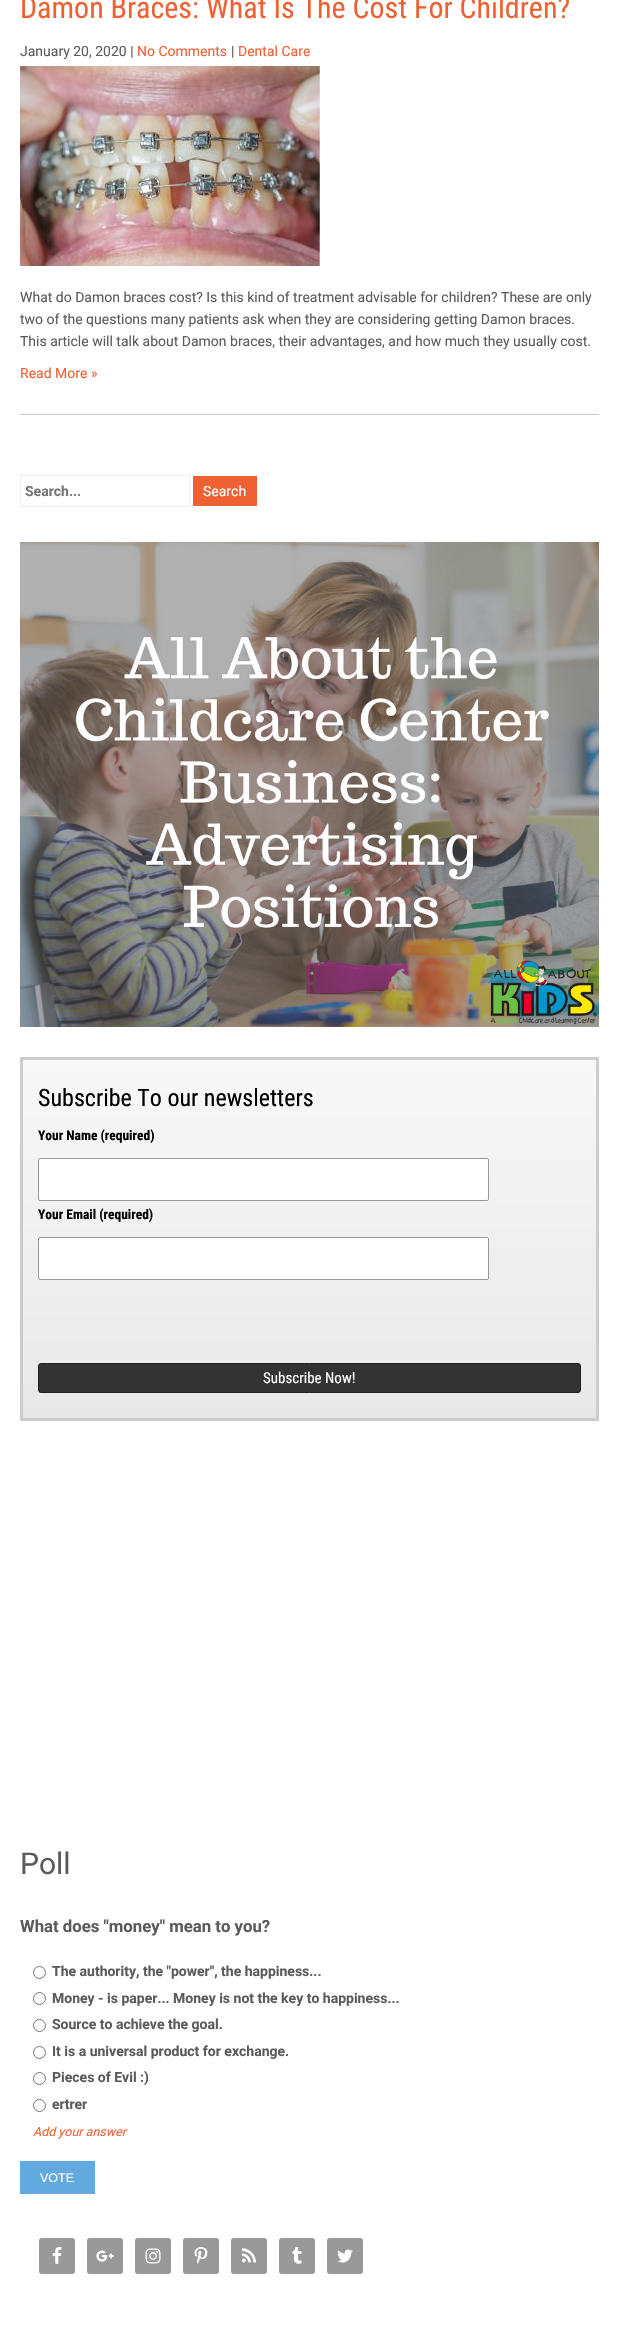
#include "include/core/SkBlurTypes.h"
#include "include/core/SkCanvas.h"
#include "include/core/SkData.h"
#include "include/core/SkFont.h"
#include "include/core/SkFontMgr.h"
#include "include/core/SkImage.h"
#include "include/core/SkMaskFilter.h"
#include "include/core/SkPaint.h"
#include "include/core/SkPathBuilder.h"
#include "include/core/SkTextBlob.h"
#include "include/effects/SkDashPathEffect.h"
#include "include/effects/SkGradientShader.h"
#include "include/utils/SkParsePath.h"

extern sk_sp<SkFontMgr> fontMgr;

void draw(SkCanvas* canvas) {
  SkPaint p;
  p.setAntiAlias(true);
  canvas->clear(SK_ColorWHITE);
  p.setColor(SkColorSetRGB(204, 204, 204));
  canvas->drawRect(SkRect::MakeLTRB(20, 414, 599, 415), p);
  canvas->drawImageRect(SkImages::DeferredFromEncodedData(SkData::MakeFromFileName("images/1.png")), SkRect::MakeLTRB(20, 66, 320, 266), SkSamplingOptions());
  p.setStyle(SkPaint::kStroke_Style);
  p.setStrokeWidth(1);
  p.setColor(SkColorSetRGB(238, 238, 238));
  canvas->drawRect(SkRect::MakeLTRB(20.5f, 475.5f, 189.5f, 506.5f), p);
  p.setStyle(SkPaint::kFill_Style);
  p.setColor(SkColorSetRGB(238, 97, 51));
  canvas->drawRect(SkRect::MakeLTRB(193, 476, 257, 506), p);
  canvas->drawImageRect(SkImages::DeferredFromEncodedData(SkData::MakeFromFileName("images/2.png")), SkRect::MakeLTRB(20, 542, 599, 1027), SkSamplingOptions());
  {
    const SkColor colors[] = {SkColorSetRGB(248, 248, 248), SkColorSetRGB(232, 232, 232)};
    const float stops[] = {0, 1};
    const SkPoint ends[] = {{310, 1060}, {310, 1418}};
    p.setShader(SkGradientShader::MakeLinear(ends, colors, stops, 2, SkTileMode::kClamp));
    p.setAlpha(255);
  }
  canvas->drawRect(SkRect::MakeLTRB(23, 1060, 596, 1418), p);
  p.setStyle(SkPaint::kStroke_Style);
  p.setStrokeWidth(3);
  p.setShader(nullptr);
  p.setColor(SkColorSetRGB(204, 204, 204));
  canvas->drawRect(SkRect::MakeLTRB(21.5f, 1058.5f, 597.5f, 1419.5f), p);
  p.setStyle(SkPaint::kFill_Style);
  p.setColor(SK_ColorWHITE);
  canvas->drawRoundRect(SkRect::MakeLTRB(38.5f, 1158.5f, 488.5f, 1200.5f), 1.5f, 1.5f, p);
  p.setStyle(SkPaint::kStroke_Style);
  p.setStrokeWidth(1);
  p.setColor(SkColorSetRGB(153, 153, 153));
  canvas->drawRoundRect(SkRect::MakeLTRB(38.5f, 1158.5f, 488.5f, 1200.5f), 1.5f, 1.5f, p);
  p.setStyle(SkPaint::kFill_Style);
  p.setColor(SK_ColorWHITE);
  canvas->drawRoundRect(SkRect::MakeLTRB(38.5f, 1237.5f, 488.5f, 1279.5f), 1.5f, 1.5f, p);
  p.setStyle(SkPaint::kStroke_Style);
  p.setColor(SkColorSetRGB(153, 153, 153));
  canvas->drawRoundRect(SkRect::MakeLTRB(38.5f, 1237.5f, 488.5f, 1279.5f), 1.5f, 1.5f, p);
  p.setStyle(SkPaint::kFill_Style);
  p.setColor(SkColorSetRGB(51, 51, 51));
  canvas->drawRoundRect(SkRect::MakeLTRB(38.5f, 1363.5f, 580.5f, 1392.5f), 2.5f, 2.5f, p);
  p.setStyle(SkPaint::kStroke_Style);
  p.setColor(SkColorSetRGB(34, 34, 34));
  canvas->drawRoundRect(SkRect::MakeLTRB(38.5f, 1363.5f, 580.5f, 1392.5f), 2.5f, 2.5f, p);
  p.setColor(SkColorSetRGB(118, 118, 118));
  canvas->drawCircle(39.5f, 1972.5f, 6, p);
  canvas->drawCircle(39.5f, 1998.5f, 6, p);
  canvas->drawCircle(39.5f, 2025.5f, 6, p);
  canvas->drawCircle(39.5f, 2052.5f, 6, p);
  canvas->drawCircle(39.5f, 2078.5f, 6, p);
  canvas->drawCircle(39.5f, 2105.5f, 6, p);
  p.setStyle(SkPaint::kFill_Style);
  p.setColor(SkColorSetRGB(97, 169, 222));
  canvas->drawRect(SkRect::MakeLTRB(20, 2161, 95, 2194), p);
  p.setColor(SkColorSetRGB(153, 153, 153));
  canvas->drawRoundRect(SkRect::MakeLTRB(39, 2238, 75, 2274), 3, 3, p);
  canvas->drawImageRect(SkImages::DeferredFromEncodedData(SkData::MakeFromFileName("images/3.png")), SkRect::MakeLTRB(52, 2247, 62, 2264), SkSamplingOptions());
  canvas->drawRoundRect(SkRect::MakeLTRB(87, 2238, 123, 2274), 3, 3, p);
  canvas->drawImageRect(SkImages::DeferredFromEncodedData(SkData::MakeFromFileName("images/4.png")), SkRect::MakeLTRB(96, 2250, 114, 2262), SkSamplingOptions());
  canvas->drawRoundRect(SkRect::MakeLTRB(135, 2238, 171, 2274), 3, 3, p);
  canvas->drawImageRect(SkImages::DeferredFromEncodedData(SkData::MakeFromFileName("images/5.png")), SkRect::MakeLTRB(145, 2248, 161, 2264), SkSamplingOptions());
  canvas->drawRoundRect(SkRect::MakeLTRB(183, 2238, 219, 2274), 3, 3, p);
  canvas->drawImageRect(SkImages::DeferredFromEncodedData(SkData::MakeFromFileName("images/6.png")), SkRect::MakeLTRB(194, 2247, 208, 2264), SkSamplingOptions());
  canvas->drawRoundRect(SkRect::MakeLTRB(231, 2238, 267, 2274), 3, 3, p);
  canvas->drawImageRect(SkImages::DeferredFromEncodedData(SkData::MakeFromFileName("images/7.png")), SkRect::MakeLTRB(241, 2248, 256, 2263), SkSamplingOptions());
  canvas->drawRoundRect(SkRect::MakeLTRB(279, 2238, 315, 2274), 3, 3, p);
  canvas->drawImageRect(SkImages::DeferredFromEncodedData(SkData::MakeFromFileName("images/8.png")), SkRect::MakeLTRB(292, 2247, 302, 2264), SkSamplingOptions());
  canvas->drawRoundRect(SkRect::MakeLTRB(327, 2238, 363, 2274), 3, 3, p);
  canvas->drawImageRect(SkImages::DeferredFromEncodedData(SkData::MakeFromFileName("images/9.png")), SkRect::MakeLTRB(337, 2249, 353, 2263), SkSamplingOptions());
  SkFont font1(fontMgr->matchFamilyStyle("Roboto Condensed", SkFontStyle::Normal()), 30);
  font1.setSubpixel(true);
  p.setColor(SkColorSetRGB(238, 97, 51));
  canvas->drawString("Damon Braces: What Is The Cost For Children?", 20, 18, font1, p);
  SkFont font2(fontMgr->matchFamilyStyle("Roboto", SkFontStyle::Normal()), 14);
  font2.setSubpixel(true);
  p.setColor(SkColorSetRGB(91, 91, 91));
  canvas->drawString("January 20, 2020 |", 20, 56, font2, p);
  p.setColor(SkColorSetRGB(238, 97, 51));
  canvas->drawString("No Comments", 137, 56, font2, p);
  p.setColor(SkColorSetRGB(91, 91, 91));
  canvas->drawString("|", 231, 56, font2, p);
  p.setColor(SkColorSetRGB(238, 97, 51));
  canvas->drawString("Dental Care", 238, 56, font2, p);
  p.setColor(SkColorSetRGB(91, 91, 91));
  canvas->drawString("What do Damon braces cost? Is this kind of treatment advisable for children? These are only", 20, 302, font2, p);
  canvas->drawString("two of the questions many patients ask when they are considering getting Damon braces.", 20, 324, font2, p);
  canvas->drawString("This article will talk about Damon braces, their advantages, and how much they usually cost.", 20, 346, font2, p);
  p.setColor(SkColorSetRGB(238, 97, 51));
  canvas->drawString("Read More »", 20, 378, font2, p);
  SkFont font3(fontMgr->matchFamilyStyle("Roboto", SkFontStyle::Bold()), 14);
  font3.setSubpixel(true);
  p.setColor(SkColorSetRGB(117, 117, 117));
  canvas->drawString("Search...", 25, 496, font3, p);
  p.setColor(SK_ColorWHITE);
  canvas->drawString("Search", 203, 496, font2, p);
  SkFont font4(fontMgr->matchFamilyStyle("Roboto Condensed", SkFontStyle::Normal()), 24);
  font4.setSubpixel(true);
  p.setColor(SK_ColorBLACK);
  canvas->drawString("Subscribe To our newsletters", 38, 1106, font4, p);
  SkFont font5(fontMgr->matchFamilyStyle("Roboto Condensed", SkFontStyle::Bold()), 13.5f);
  font5.setSubpixel(true);
  canvas->drawString("Your Name (required)", 38, 1140, font5, p);
  canvas->drawString("Your Email (required)", 38, 1219, font5, p);
  SkFont font6(fontMgr->matchFamilyStyle("Roboto Condensed", SkFontStyle::Normal()), 15);
  font6.setSubpixel(true);
  p.setColor(SK_ColorWHITE);
  canvas->drawString("Subscribe Now!", 263, 1383, font6, p);
  SkFont font7(fontMgr->matchFamilyStyle("Roboto", SkFontStyle::Normal()), 30);
  font7.setSubpixel(true);
  p.setColor(SkColorSetRGB(91, 91, 91));
  canvas->drawString("Poll", 20, 1874, font7, p);
  SkFont font8(fontMgr->matchFamilyStyle("Roboto", SkFontStyle::Bold()), 16.75f);
  font8.setSubpixel(true);
  canvas->drawString("What does \"money\" mean to you?", 20, 1932, font8, p);
  canvas->drawString("The authority, the \"power\", the happiness...", 52, 1976, font3, p);
  canvas->drawString("Money - is paper... Money is not the key to happiness...", 52, 2003, font3, p);
  canvas->drawString("Source to achieve the goal.", 52, 2029, font3, p);
  canvas->drawString("It is a universal product for exchange.", 52, 2056, font3, p);
  canvas->drawString("Pieces of Evil :)", 52, 2082, font3, p);
  canvas->drawString("ertrer", 52, 2109, font3, p);
  SkFont font9(fontMgr->matchFamilyStyle("Roboto", SkFontStyle::Italic()), 12.5f);
  font9.setSubpixel(true);
  p.setColor(SkColorSetRGB(238, 97, 51));
  canvas->drawString("Add your answer", 33, 2136, font9, p);
  SkFont font10(fontMgr->matchFamilyStyle("Liberation Sans", SkFontStyle::Normal()), 12.5f);
  font10.setSubpixel(true);
  p.setColor(SK_ColorWHITE);
  canvas->drawString("VOTE", 40, 2182, font10, p);
}
